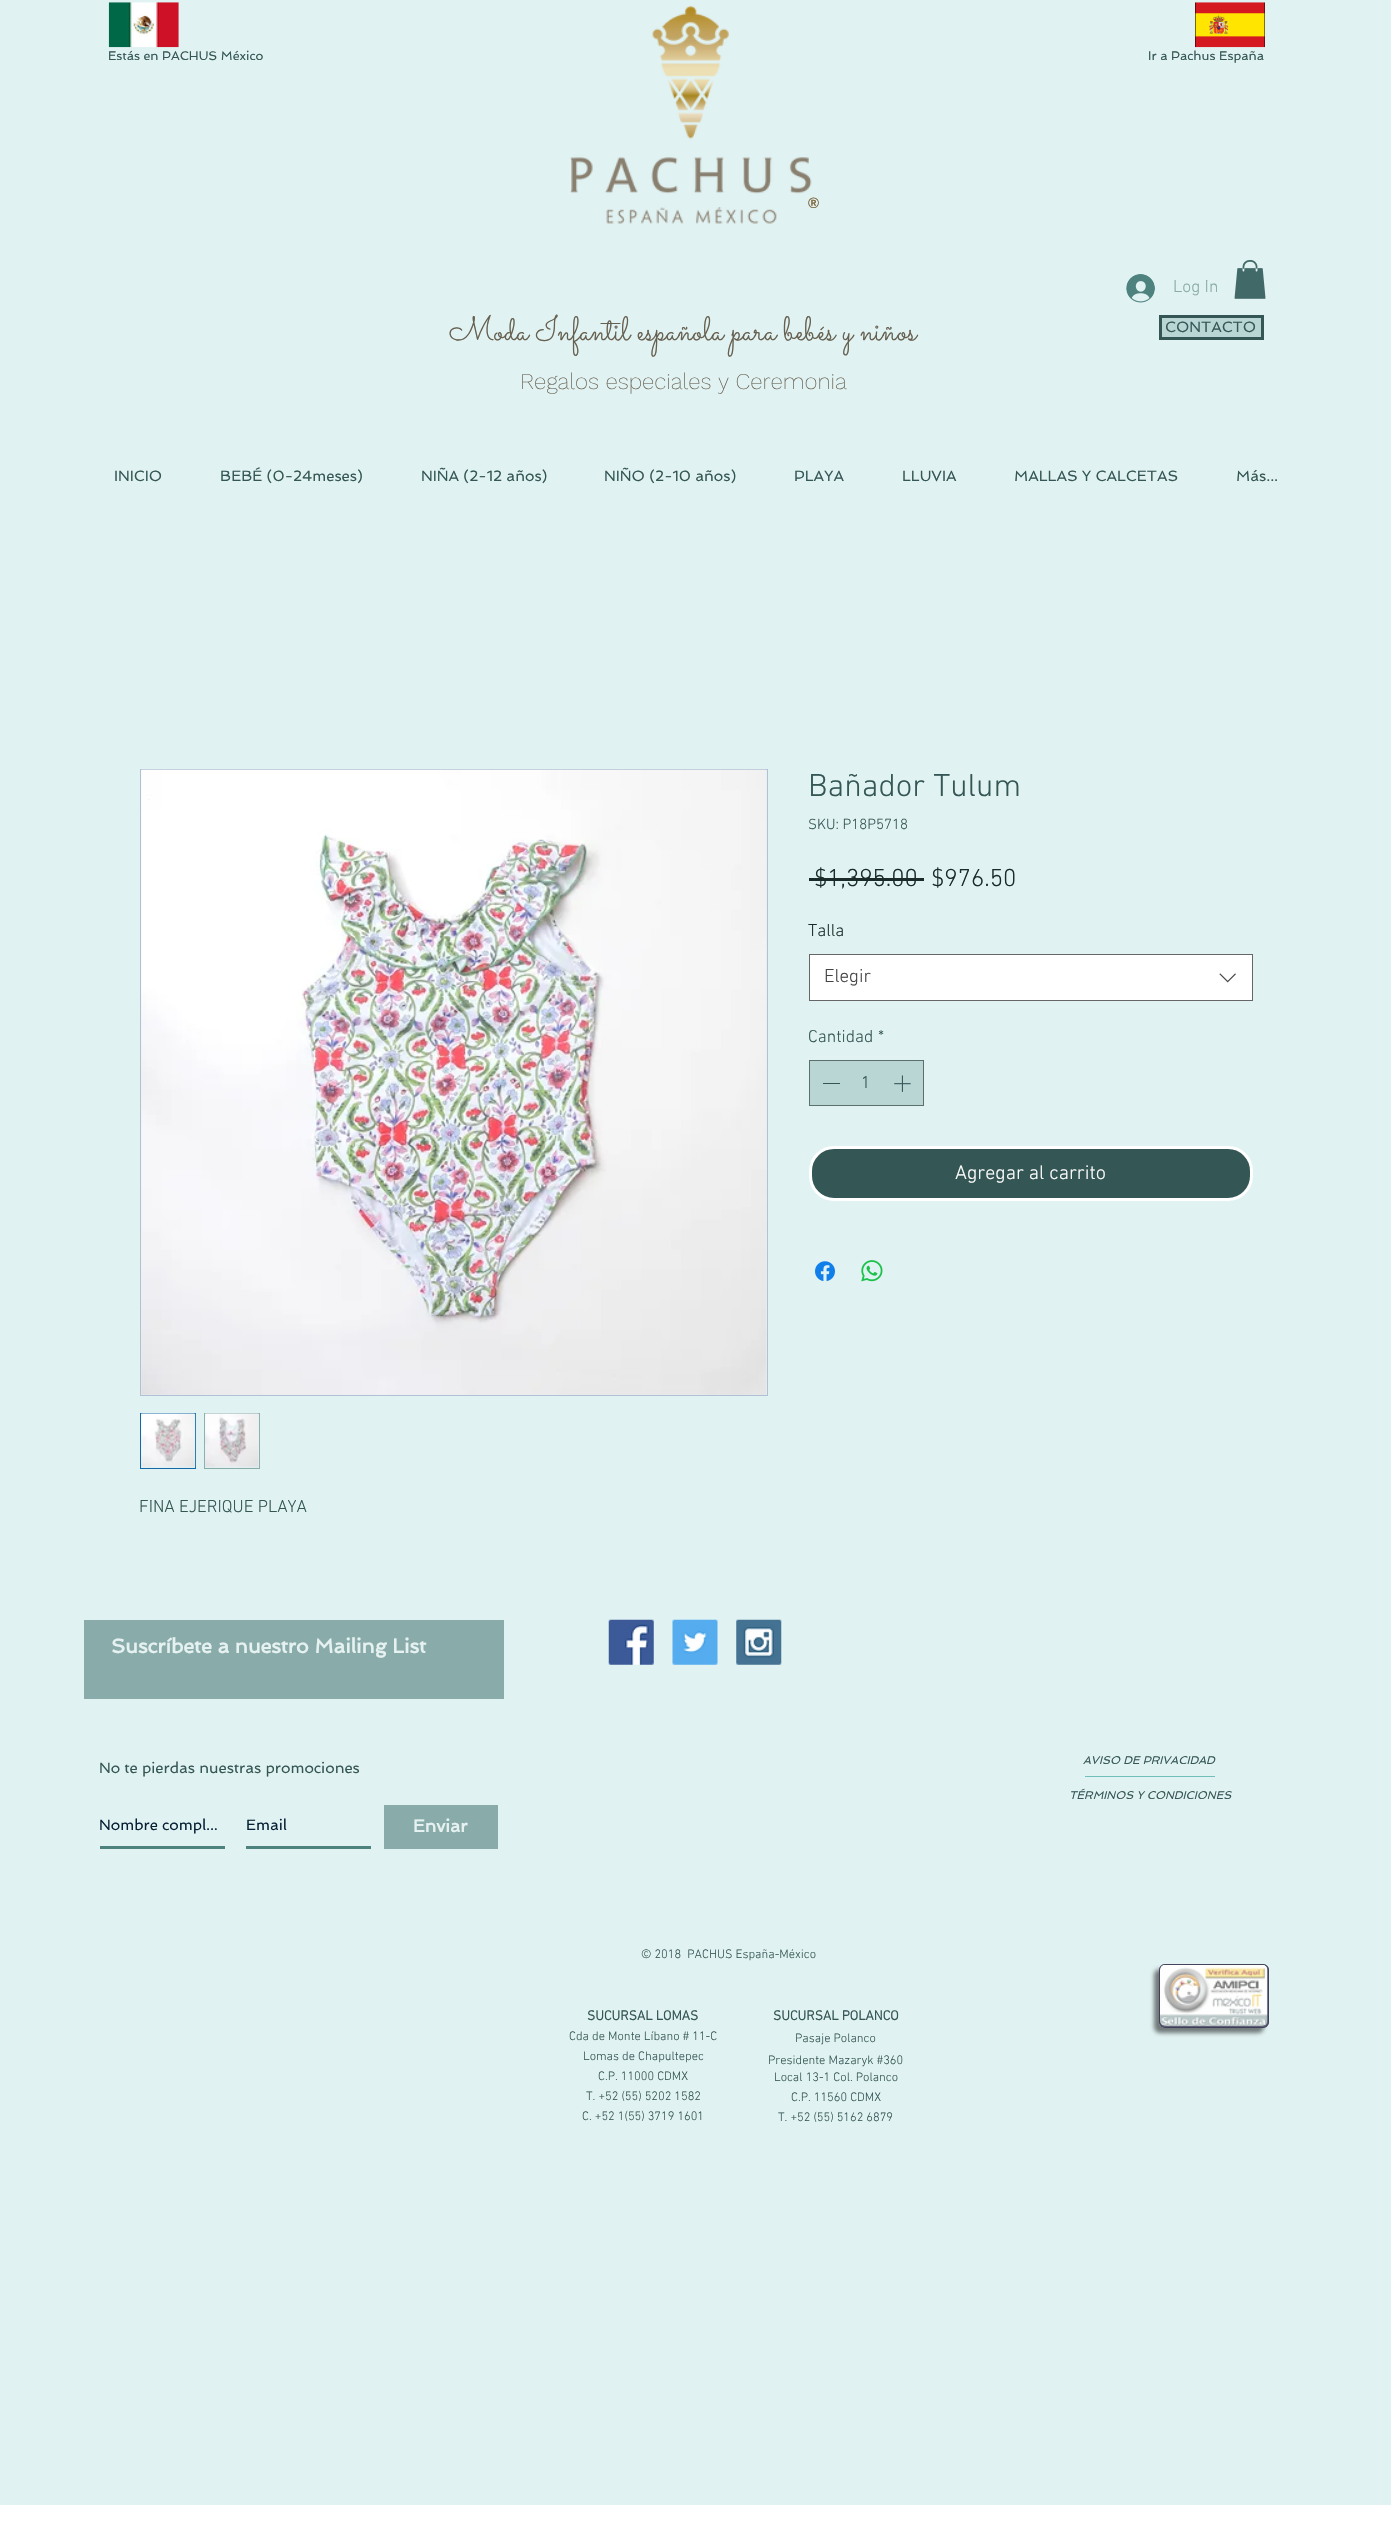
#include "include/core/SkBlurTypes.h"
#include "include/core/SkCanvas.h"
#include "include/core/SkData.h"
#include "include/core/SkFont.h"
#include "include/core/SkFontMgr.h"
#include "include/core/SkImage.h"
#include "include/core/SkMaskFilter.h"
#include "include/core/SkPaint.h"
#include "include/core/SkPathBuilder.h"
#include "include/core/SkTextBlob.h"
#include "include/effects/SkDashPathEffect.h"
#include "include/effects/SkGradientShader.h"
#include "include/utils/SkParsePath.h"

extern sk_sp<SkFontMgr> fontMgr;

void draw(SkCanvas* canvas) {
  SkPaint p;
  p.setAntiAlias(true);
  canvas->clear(SK_ColorWHITE);
  p.setColor(SkColorSetRGB(225, 242, 242));
  canvas->drawRect(SkRect::MakeLTRB(0, 0, 1391, 2505), p);
  canvas->drawImageRect(SkImages::DeferredFromEncodedData(SkData::MakeFromFileName("images/1.png")), SkRect::MakeLTRB(108, 2, 179, 48), SkSamplingOptions());
  canvas->drawImageRect(SkImages::DeferredFromEncodedData(SkData::MakeFromFileName("images/2.png")), SkRect::MakeLTRB(570, 5, 812, 224), SkSamplingOptions());
  canvas->drawImageRect(SkImages::DeferredFromEncodedData(SkData::MakeFromFileName("images/3.png")), SkRect::MakeLTRB(1195, 2, 1265, 48), SkSamplingOptions());
  canvas->drawImageRect(SkImages::DeferredFromEncodedData(SkData::MakeFromFileName("images/4.png")), SkRect::MakeLTRB(1126, 274, 1155, 303), SkSamplingOptions());
  canvas->drawImageRect(SkImages::DeferredFromEncodedData(SkData::MakeFromFileName("images/5.png")), SkRect::MakeLTRB(1234, 260, 1266, 299), SkSamplingOptions());
  p.setColor(SkColorSetRGB(185, 213, 212));
  canvas->drawRect(SkRect::MakeLTRB(1160.5f, 316.5f, 1262.5f, 338.5f), p);
  p.setStyle(SkPaint::kStroke_Style);
  p.setStrokeWidth(3);
  p.setColor(SkColorSetRGB(52, 87, 85));
  canvas->drawRect(SkRect::MakeLTRB(1160.5f, 316.5f, 1262.5f, 338.5f), p);
  p.setStyle(SkPaint::kFill_Style);
  p.setColor(SkColorSetRGB(26, 43, 42));
  canvas->drawRect(SkRect::MakeLTRB(809, 878, 924, 881), p);
  p.setColor(SK_ColorWHITE);
  canvas->drawRect(SkRect::MakeLTRB(809.5f, 954.5f, 1252.5f, 1000.5f), p);
  p.setStyle(SkPaint::kStroke_Style);
  p.setStrokeWidth(1);
  p.setColor(SkColorSetRGB(102, 102, 102));
  canvas->drawRect(SkRect::MakeLTRB(809.5f, 954.5f, 1252.5f, 1000.5f), p);
  canvas->drawImageRect(SkImages::DeferredFromEncodedData(SkData::MakeFromFileName("images/6.png")), SkRect::MakeLTRB(1219, 973, 1236, 983), SkSamplingOptions());
  p.setStyle(SkPaint::kFill_Style);
  p.setColor(SkColorSetRGB(185, 213, 212));
  canvas->drawRect(SkRect::MakeLTRB(809.5f, 1060.5f, 923.5f, 1105.5f), p);
  p.setStyle(SkPaint::kStroke_Style);
  p.setColor(SkColorSetRGB(90, 111, 110));
  canvas->drawRect(SkRect::MakeLTRB(809.5f, 1060.5f, 923.5f, 1105.5f), p);
  p.setStyle(SkPaint::kFill_Style);
  p.setColor(SkColorSetRGB(52, 87, 85));
  canvas->drawRect(SkRect::MakeLTRB(823, 1083, 840, 1084), p);
  canvas->drawImageRect(SkImages::DeferredFromEncodedData(SkData::MakeFromFileName("images/7.png")), SkRect::MakeLTRB(894, 1075, 911, 1092), SkSamplingOptions());
  canvas->drawRoundRect(SkRect::MakeLTRB(810.5f, 1147.5f, 1251.5f, 1199.5f), 23.5f, 23.5f, p);
  p.setStyle(SkPaint::kStroke_Style);
  p.setStrokeWidth(3);
  p.setColor(SK_ColorWHITE);
  canvas->drawRoundRect(SkRect::MakeLTRB(810.5f, 1147.5f, 1251.5f, 1199.5f), 23.5f, 23.5f, p);
  canvas->drawImageRect(SkImages::DeferredFromEncodedData(SkData::MakeFromFileName("images/8.png")), SkRect::MakeLTRB(815, 1261, 835, 1282), SkSamplingOptions());
  canvas->drawImageRect(SkImages::DeferredFromEncodedData(SkData::MakeFromFileName("images/9.png")), SkRect::MakeLTRB(861, 1260, 883, 1282), SkSamplingOptions());
  p.setStrokeWidth(1);
  p.setColor(SkColorSetRGB(179, 192, 211));
  canvas->drawRect(SkRect::MakeLTRB(140.5f, 769.5f, 767.5f, 1395.5f), p);
  canvas->drawImageRect(SkImages::DeferredFromEncodedData(SkData::MakeFromFileName("images/10.png")), SkRect::MakeLTRB(141, 769, 767, 1395), SkSamplingOptions());
  p.setColor(SkColorSetRGB(20, 104, 168));
  canvas->drawRect(SkRect::MakeLTRB(140.5f, 1413.5f, 195.5f, 1468.5f), p);
  canvas->drawImageRect(SkImages::DeferredFromEncodedData(SkData::MakeFromFileName("images/11.png")), SkRect::MakeLTRB(141, 1413, 196, 1468), SkSamplingOptions());
  p.setColor(SkColorSetRGB(137, 172, 170));
  canvas->drawRect(SkRect::MakeLTRB(204.5f, 1413.5f, 259.5f, 1468.5f), p);
  canvas->drawImageRect(SkImages::DeferredFromEncodedData(SkData::MakeFromFileName("images/12.png")), SkRect::MakeLTRB(204, 1413, 260, 1468), SkSamplingOptions());
  p.setStyle(SkPaint::kFill_Style);
  canvas->drawRect(SkRect::MakeLTRB(84, 1620, 504, 1699), p);
  p.setColor(SkColorSetRGB(78, 130, 127));
  canvas->drawRect(SkRect::MakeLTRB(100, 1846, 225, 1849), p);
  canvas->drawRect(SkRect::MakeLTRB(246, 1846, 371, 1849), p);
  p.setColor(SkColorSetRGB(137, 172, 170));
  canvas->drawRect(SkRect::MakeLTRB(384, 1805, 498, 1849), p);
  canvas->drawImageRect(SkImages::DeferredFromEncodedData(SkData::MakeFromFileName("images/13.png")), SkRect::MakeLTRB(608, 1619, 654, 1665), SkSamplingOptions());
  canvas->drawImageRect(SkImages::DeferredFromEncodedData(SkData::MakeFromFileName("images/14.png")), SkRect::MakeLTRB(672, 1619, 718, 1665), SkSamplingOptions());
  canvas->drawImageRect(SkImages::DeferredFromEncodedData(SkData::MakeFromFileName("images/15.png")), SkRect::MakeLTRB(736, 1619, 782, 1665), SkSamplingOptions());
  p.setColor(SkColorSetRGB(113, 191, 186));
  canvas->drawRect(SkRect::MakeLTRB(1085, 1776, 1215, 1777), p);
  canvas->save();
  canvas->clipPath(SkPathBuilder(SkPathFillType::kEvenOdd).moveTo(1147, 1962).lineTo(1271, 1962).lineTo(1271, 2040).lineTo(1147, 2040).close().moveTo(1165, 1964).lineTo(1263, 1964).cubicTo(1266.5f, 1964, 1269, 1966.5f, 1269, 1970).lineTo(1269, 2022).cubicTo(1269, 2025.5f, 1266.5f, 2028, 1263, 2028).lineTo(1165, 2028).cubicTo(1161.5f, 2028, 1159, 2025.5f, 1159, 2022).lineTo(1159, 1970).cubicTo(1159, 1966.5f, 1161.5f, 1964, 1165, 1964).close().detach(), true);
  p.setColor(SkColorSetARGB(128, 0, 0, 0));
  p.setMaskFilter(SkMaskFilter::MakeBlur(kNormal_SkBlurStyle, 2));
  canvas->drawRoundRect(SkRect::MakeLTRB(1154, 1969, 1264, 2033), 6, 6, p);
  p.setMaskFilter(nullptr);
  canvas->restore();
  p.setColor(SkColorSetARGB(191, 54, 50, 79));
  canvas->drawRoundRect(SkRect::MakeLTRB(1159, 1964, 1269, 2028), 6, 6, p);
  p.setStyle(SkPaint::kStroke_Style);
  canvas->drawRoundRect(SkRect::MakeLTRB(1159.5f, 1964.5f, 1268.5f, 2027.5f), 5.5f, 5.5f, p);
  canvas->drawImageRect(SkImages::DeferredFromEncodedData(SkData::MakeFromFileName("images/16.png")), SkRect::MakeLTRB(1160, 1964, 1268, 2026), SkSamplingOptions());
  SkFont font1(fontMgr->matchFamilyStyle("Spinnaker", SkFontStyle::Normal()), 12.5f);
  font1.setSubpixel(true);
  p.setStyle(SkPaint::kFill_Style);
  p.setColor(SkColorSetRGB(52, 87, 85));
  canvas->drawString("Estás en PACHUS México", 108, 60, font1, p);
  canvas->drawString("Ir a Pachus España", 1148, 60, font1, p);
  SkFont font2(fontMgr->matchFamilyStyle("Liberation Sans", SkFontStyle::Bold()), 15);
  font2.setSubpixel(true);
  p.setColor(SkColorSetRGB(125, 103, 61));
  canvas->drawString("®", 808, 208, font2, p);
  SkFont font3(fontMgr->matchFamilyStyle("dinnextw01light", SkFontStyle(300, SkFontStyle::kNormal_Width, SkFontStyle::kUpright_Slant)), 17.5f);
  font3.setSubpixel(true);
  p.setColor(SkColorSetRGB(137, 172, 170));
  canvas->drawString("Log In", 1173, 292, font3, p);
  SkFont font4(fontMgr->matchFamilyStyle("Sacramento", SkFontStyle::Normal()), 33.75f);
  font4.setSubpixel(true);
  p.setColor(SkColorSetRGB(102, 96, 80));
  canvas->drawString("Moda Infantil española para bebés y niños", 449, 340, font4, p);
  SkFont font5(fontMgr->matchFamilyStyle("Work Sans", SkFontStyle(200, SkFontStyle::kNormal_Width, SkFontStyle::kUpright_Slant)), 22.5f);
  font5.setSubpixel(true);
  canvas->drawString("Regalos especiales y Ceremonia", 520, 389, font5, p);
  SkFont font6(fontMgr->matchFamilyStyle("Spinnaker", SkFontStyle::Normal()), 15);
  font6.setSubpixel(true);
  p.setColor(SkColorSetRGB(52, 87, 85));
  canvas->drawString("CONTACTO", 1165, 332, font6, p);
  canvas->drawString("INICIO", 114, 481, font6, p);
  canvas->drawString("BEBÉ (0-24meses)", 220, 481, font6, p);
  canvas->drawString("NIÑA (2-12 años)", 421, 481, font6, p);
  canvas->drawString("NIÑO (2-10 años)", 604, 481, font6, p);
  canvas->drawString("PLAYA", 794, 481, font6, p);
  canvas->drawString("LLUVIA", 902, 481, font6, p);
  canvas->drawString("MALLAS Y CALCETAS", 1014, 481, font6, p);
  canvas->drawString("Más...", 1236, 481, font6, p);
  SkFont font7(fontMgr->matchFamilyStyle("dinnextw01light", SkFontStyle(300, SkFontStyle::kNormal_Width, SkFontStyle::kUpright_Slant)), 32.5f);
  font7.setSubpixel(true);
  canvas->drawString("Bañador Tulum", 808, 796, font7, p);
  SkFont font8(fontMgr->matchFamilyStyle("dinnextw01light", SkFontStyle(300, SkFontStyle::kNormal_Width, SkFontStyle::kUpright_Slant)), 15);
  font8.setSubpixel(true);
  canvas->drawString("SKU: P18P5718", 808, 829, font8, p);
  SkFont font9(fontMgr->matchFamilyStyle("dinnextw01light", SkFontStyle(300, SkFontStyle::kNormal_Width, SkFontStyle::kUpright_Slant)), 25);
  font9.setSubpixel(true);
  p.setColor(SkColorSetRGB(26, 43, 42));
  canvas->drawString("$1,395.00", 814, 886, font9, p);
  canvas->drawString("$976.50", 931, 886, font9, p);
  canvas->drawString("Talla", 808, 936, font3, p);
  SkFont font10(fontMgr->matchFamilyStyle("dinnextw01light", SkFontStyle(300, SkFontStyle::kNormal_Width, SkFontStyle::kUpright_Slant)), 19);
  font10.setSubpixel(true);
  p.setColor(SkColorSetRGB(68, 68, 68));
  canvas->drawString("Elegir", 824, 982, font10, p);
  p.setColor(SkColorSetRGB(52, 87, 85));
  canvas->drawString("Cantidad", 808, 1042, font3, p);
  canvas->drawString("*", 878, 1042, font3, p);
  canvas->drawString("1", 861, 1088, font3, p);
  SkFont font11(fontMgr->matchFamilyStyle("dinnextw01light", SkFontStyle(300, SkFontStyle::kNormal_Width, SkFontStyle::kUpright_Slant)), 20);
  font11.setSubpixel(true);
  p.setColor(SK_ColorWHITE);
  canvas->drawString("Agregar al carrito", 955, 1179, font11, p);
  p.setColor(SkColorSetRGB(52, 87, 85));
  canvas->drawString("FINA EJERIQUE PLAYA", 139, 1512, font3, p);
  SkFont font12(fontMgr->matchFamilyStyle("Spinnaker", SkFontStyle::Bold()), 20);
  font12.setSubpixel(true);
  p.setColor(SkColorSetRGB(230, 242, 242));
  canvas->drawString("Suscríbete a nuestro Mailing List", 111, 1653, font12, p);
  p.setColor(SkColorSetRGB(52, 87, 85));
  canvas->drawString("No te pierdas nuestras promociones", 99, 1773, font6, p);
  p.setColor(SkColorSetRGB(6, 33, 52));
  canvas->drawString("Nombre compl...", 99, 1830, font6, p);
  canvas->drawString("Email", 246, 1830, font6, p);
  SkFont font13(fontMgr->matchFamilyStyle("Spinnaker", SkFontStyle::Bold()), 17.5f);
  font13.setSubpixel(true);
  p.setColor(SkColorSetRGB(230, 242, 242));
  canvas->drawString("Enviar", 413, 1832, font13, p);
  SkFont font14(fontMgr->matchFamilyStyle("Spinnaker", SkFontStyle::Italic()), 11.25f);
  font14.setSubpixel(true);
  p.setColor(SkColorSetRGB(52, 87, 85));
  canvas->drawString("AVISO DE PRIVACIDAD", 1083, 1764, font14, p);
  canvas->drawString("TÉRMINOS Y CONDICIONES", 1069, 1799, font14, p);
  SkFont font15(fontMgr->matchFamilyStyle("dinnextw01light", SkFontStyle(300, SkFontStyle::kNormal_Width, SkFontStyle::kUpright_Slant)), 12.5f);
  font15.setSubpixel(true);
  canvas->drawString("© 2018  PACHUS España-México", 641, 1958, font15, p);
  SkFont font16(fontMgr->matchFamilyStyle("dinnextw01light", SkFontStyle::Bold()), 13.75f);
  font16.setSubpixel(true);
  canvas->drawString("SUCURSAL LOMAS", 587, 2020, font16, p);
  canvas->drawString("Cda de Monte Líbano # 11-C", 569, 2040, font15, p);
  canvas->drawString("Lomas de Chapultepec", 583, 2060, font15, p);
  canvas->drawString("C.P. 11000 CDMX", 598, 2080, font15, p);
  canvas->drawString("T. +52 (55) 5202 1582", 586, 2100, font15, p);
  canvas->drawString("C. +52 1(55) 3719 1601", 582, 2120, font15, p);
  canvas->drawString("SUCURSAL POLANCO", 773, 2020, font16, p);
  canvas->drawString("Pasaje Polanco", 795, 2042, font15, p);
  canvas->drawString("Presidente Mazaryk #360", 768, 2064, font15, p);
  canvas->drawString("Local 13-1 Col. Polanco", 774, 2081, font15, p);
  canvas->drawString("C.P. 11560 CDMX", 791, 2101, font15, p);
  canvas->drawString("T. +52 (55) 5162 6879", 778, 2121, font15, p);
}
